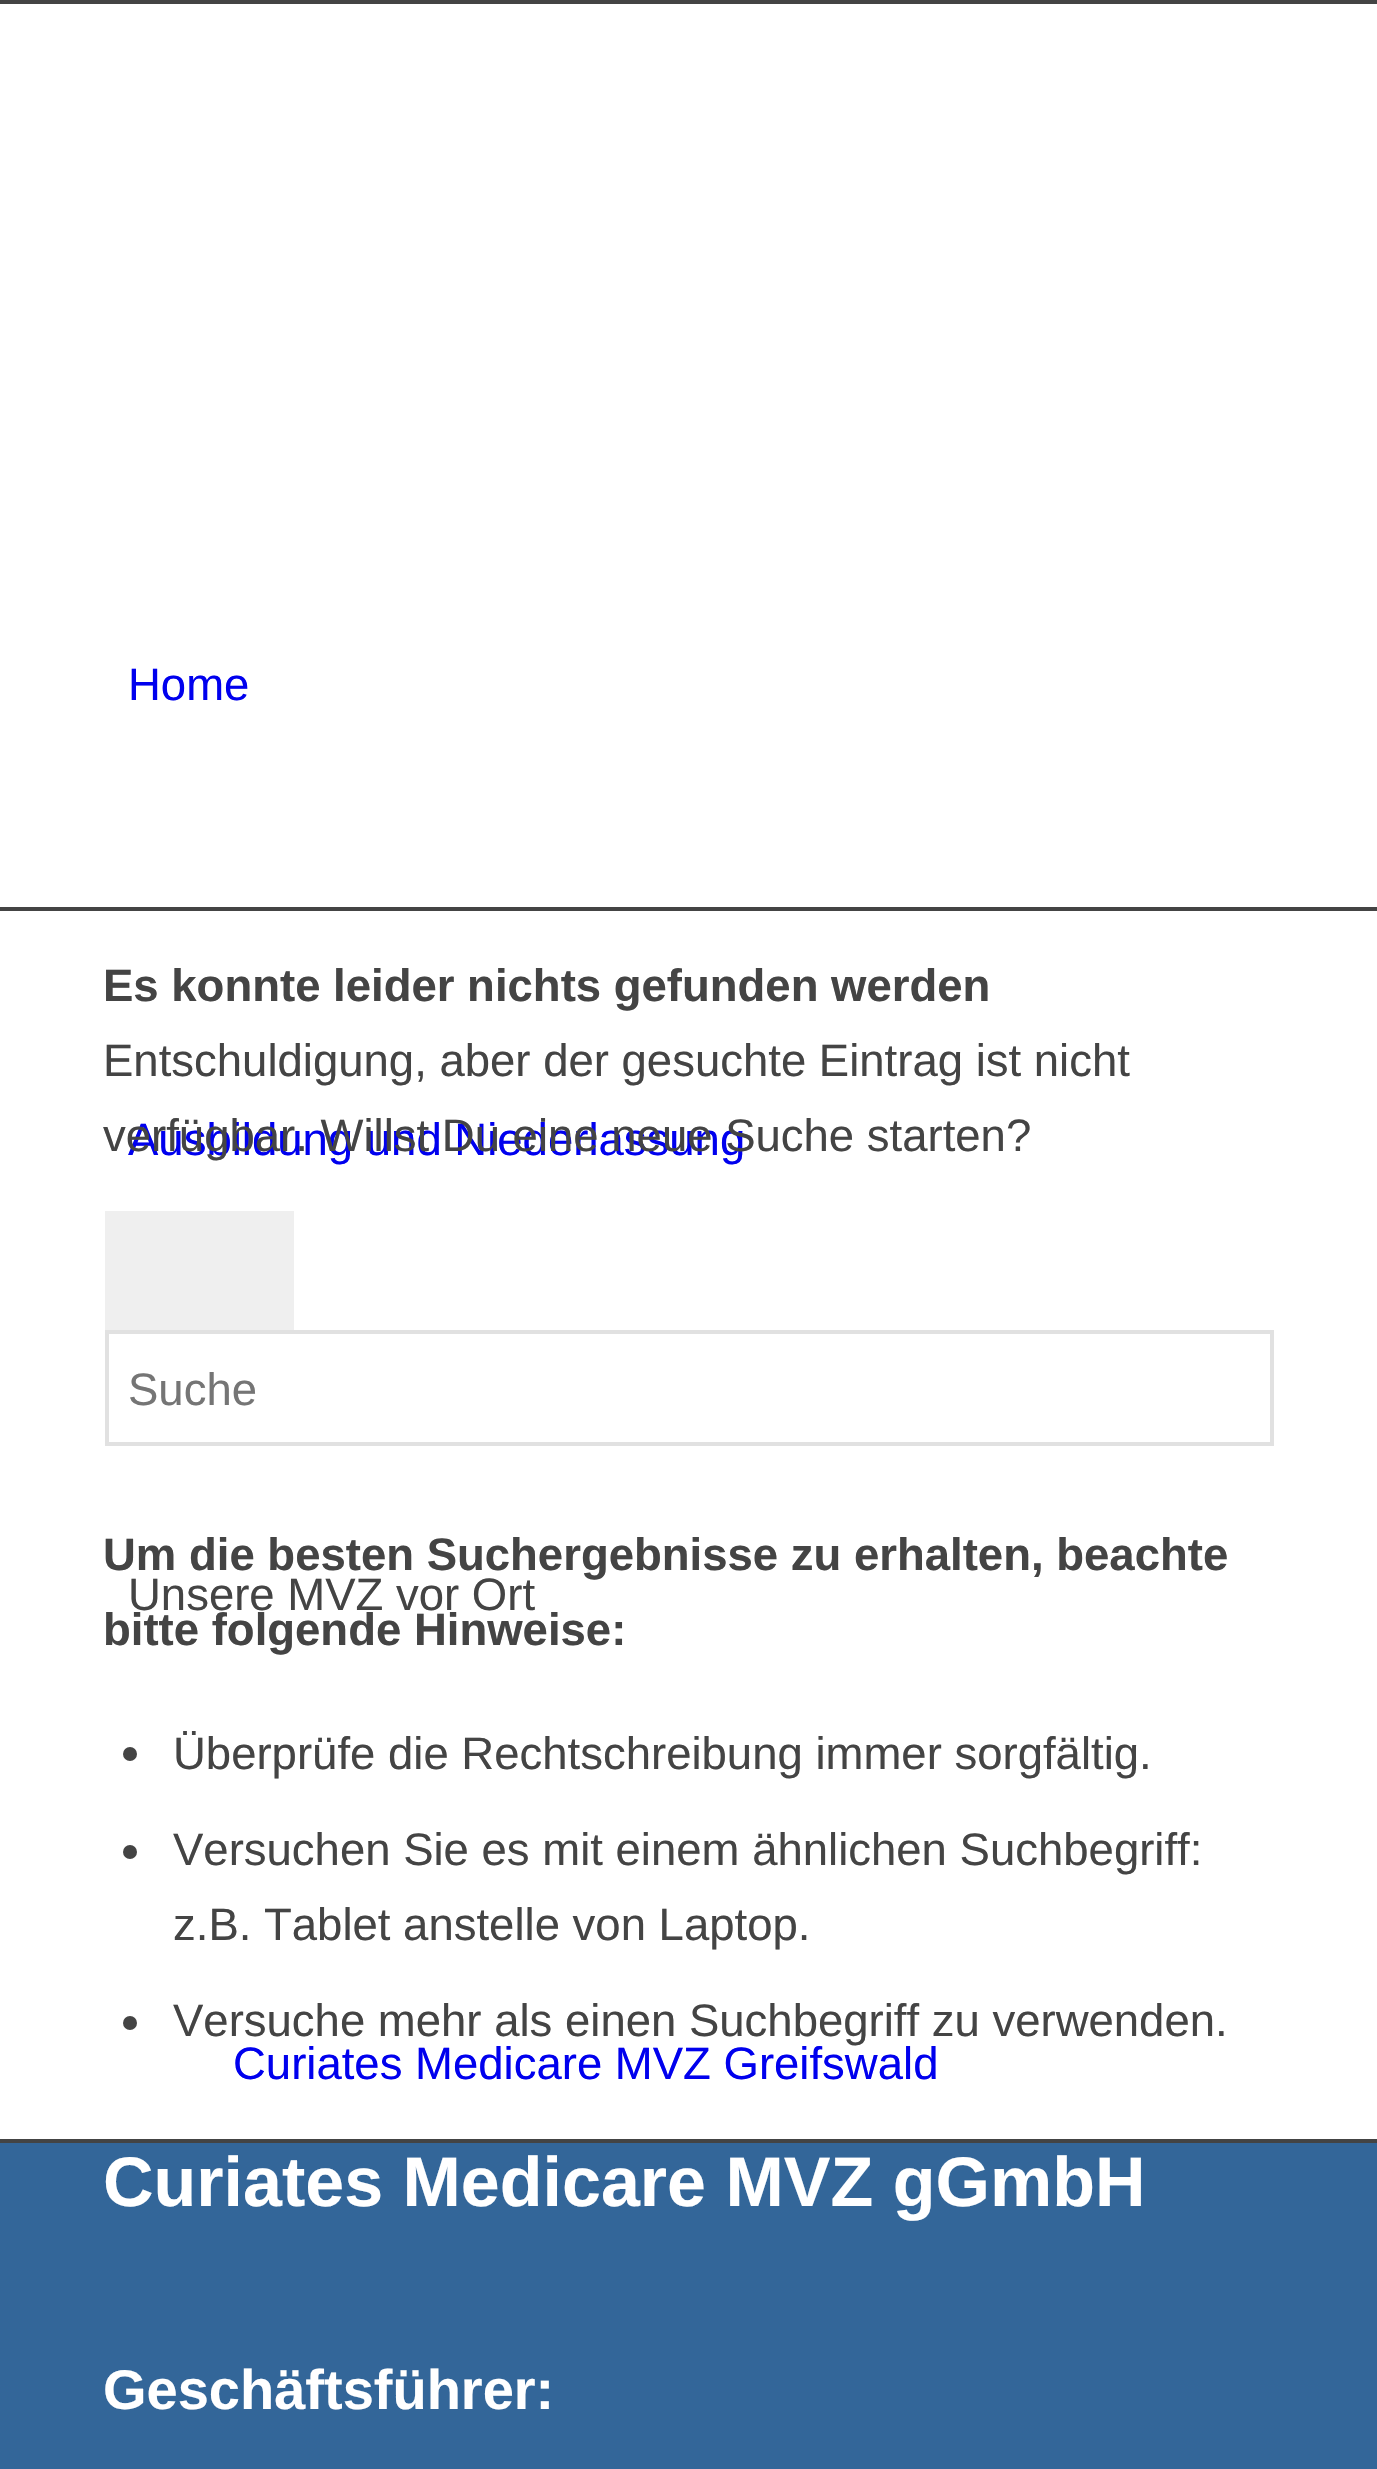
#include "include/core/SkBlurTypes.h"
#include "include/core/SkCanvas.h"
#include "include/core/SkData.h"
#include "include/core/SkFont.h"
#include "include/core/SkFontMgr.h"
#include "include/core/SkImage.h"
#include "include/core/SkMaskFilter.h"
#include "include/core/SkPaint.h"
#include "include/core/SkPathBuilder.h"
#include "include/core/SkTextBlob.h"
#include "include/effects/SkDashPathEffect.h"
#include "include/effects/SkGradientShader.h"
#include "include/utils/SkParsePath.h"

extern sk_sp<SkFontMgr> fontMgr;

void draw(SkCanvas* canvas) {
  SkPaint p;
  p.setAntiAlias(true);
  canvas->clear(SK_ColorWHITE);
  p.setColor(SkColorSetRGB(68, 68, 68));
  canvas->drawRect(SkRect::MakeLTRB(0, 0, 1377, 4), p);
  canvas->drawRect(SkRect::MakeLTRB(0, 907, 1377, 911), p);
  p.setColor(SkColorSetRGB(239, 239, 239));
  canvas->drawRect(SkRect::MakeLTRB(105, 1211, 294, 1330), p);
  p.setStyle(SkPaint::kStroke_Style);
  p.setStrokeWidth(4);
  p.setColor(SkColorSetRGB(225, 225, 225));
  canvas->drawRect(SkRect::MakeLTRB(107, 1332, 1272, 1444), p);
  p.setStyle(SkPaint::kFill_Style);
  p.setColor(SkColorSetRGB(68, 68, 68));
  canvas->drawCircle(130, 1754, 7, p);
  canvas->drawCircle(130, 1852, 7, p);
  canvas->drawCircle(130, 2023, 7, p);
  p.setColor(SkColorSetRGB(51, 102, 153));
  canvas->drawRect(SkRect::MakeLTRB(0, 2143, 1377, 2469), p);
  p.setColor(SkColorSetRGB(68, 68, 68));
  canvas->drawRect(SkRect::MakeLTRB(0, 2139, 1377, 2143), p);
  SkFont font1(fontMgr->matchFamilyStyle("Liberation Sans", SkFontStyle::Normal()), 45.5f);
  font1.setSubpixel(true);
  p.setColor(SkColorSetRGB(0, 0, 238));
  canvas->drawString("Home", 128, 700, font1, p);
  canvas->drawString("Ausbildung und Niederlassung", 128, 1155, font1, p);
  p.setColor(SkColorSetRGB(68, 68, 68));
  canvas->drawString("Unsere MVZ vor Ort", 128, 1610, font1, p);
  p.setColor(SkColorSetRGB(0, 0, 238));
  canvas->drawString("Curiates Medicare MVZ Greifswald", 233, 2079, font1, p);
  SkFont font2(fontMgr->matchFamilyStyle("Liberation Sans", SkFontStyle::Bold()), 45.5f);
  font2.setSubpixel(true);
  p.setColor(SkColorSetRGB(68, 68, 68));
  canvas->drawString("Es konnte leider nichts gefunden werden", 103, 1001, font2, p);
  canvas->drawString("Entschuldigung, aber der gesuchte Eintrag ist nicht", 103, 1076, font1, p);
  canvas->drawString("verfügbar. Willst Du eine neue Suche starten?", 103, 1151, font1, p);
  p.setColor(SkColorSetRGB(117, 117, 117));
  canvas->drawString("Suche", 128, 1405, font1, p);
  p.setColor(SkColorSetRGB(68, 68, 68));
  canvas->drawString("Um die besten Suchergebnisse zu erhalten, beachte", 103, 1570, font2, p);
  canvas->drawString("bitte folgende Hinweise:", 103, 1645, font2, p);
  canvas->drawString("Überprüfe die Rechtschreibung immer sorgfältig.", 173, 1769, font1, p);
  canvas->drawString("Versuchen Sie es mit einem ähnlichen Suchbegriff:", 173, 1865, font1, p);
  canvas->drawString("z.B. Tablet anstelle von Laptop.", 173, 1940, font1, p);
  canvas->drawString("Versuche mehr als einen Suchbegriff zu verwenden.", 173, 2036, font1, p);
  SkFont font3(fontMgr->matchFamilyStyle("Liberation Sans", SkFontStyle::Bold()), 70);
  font3.setSubpixel(true);
  p.setColor(SK_ColorWHITE);
  canvas->drawString("Curiates Medicare MVZ gGmbH", 103, 2206, font3, p);
  SkFont font4(fontMgr->matchFamilyStyle("Liberation Sans", SkFontStyle::Bold()), 56);
  font4.setSubpixel(true);
  canvas->drawString("Geschäftsführer:", 103, 2409, font4, p);
}
